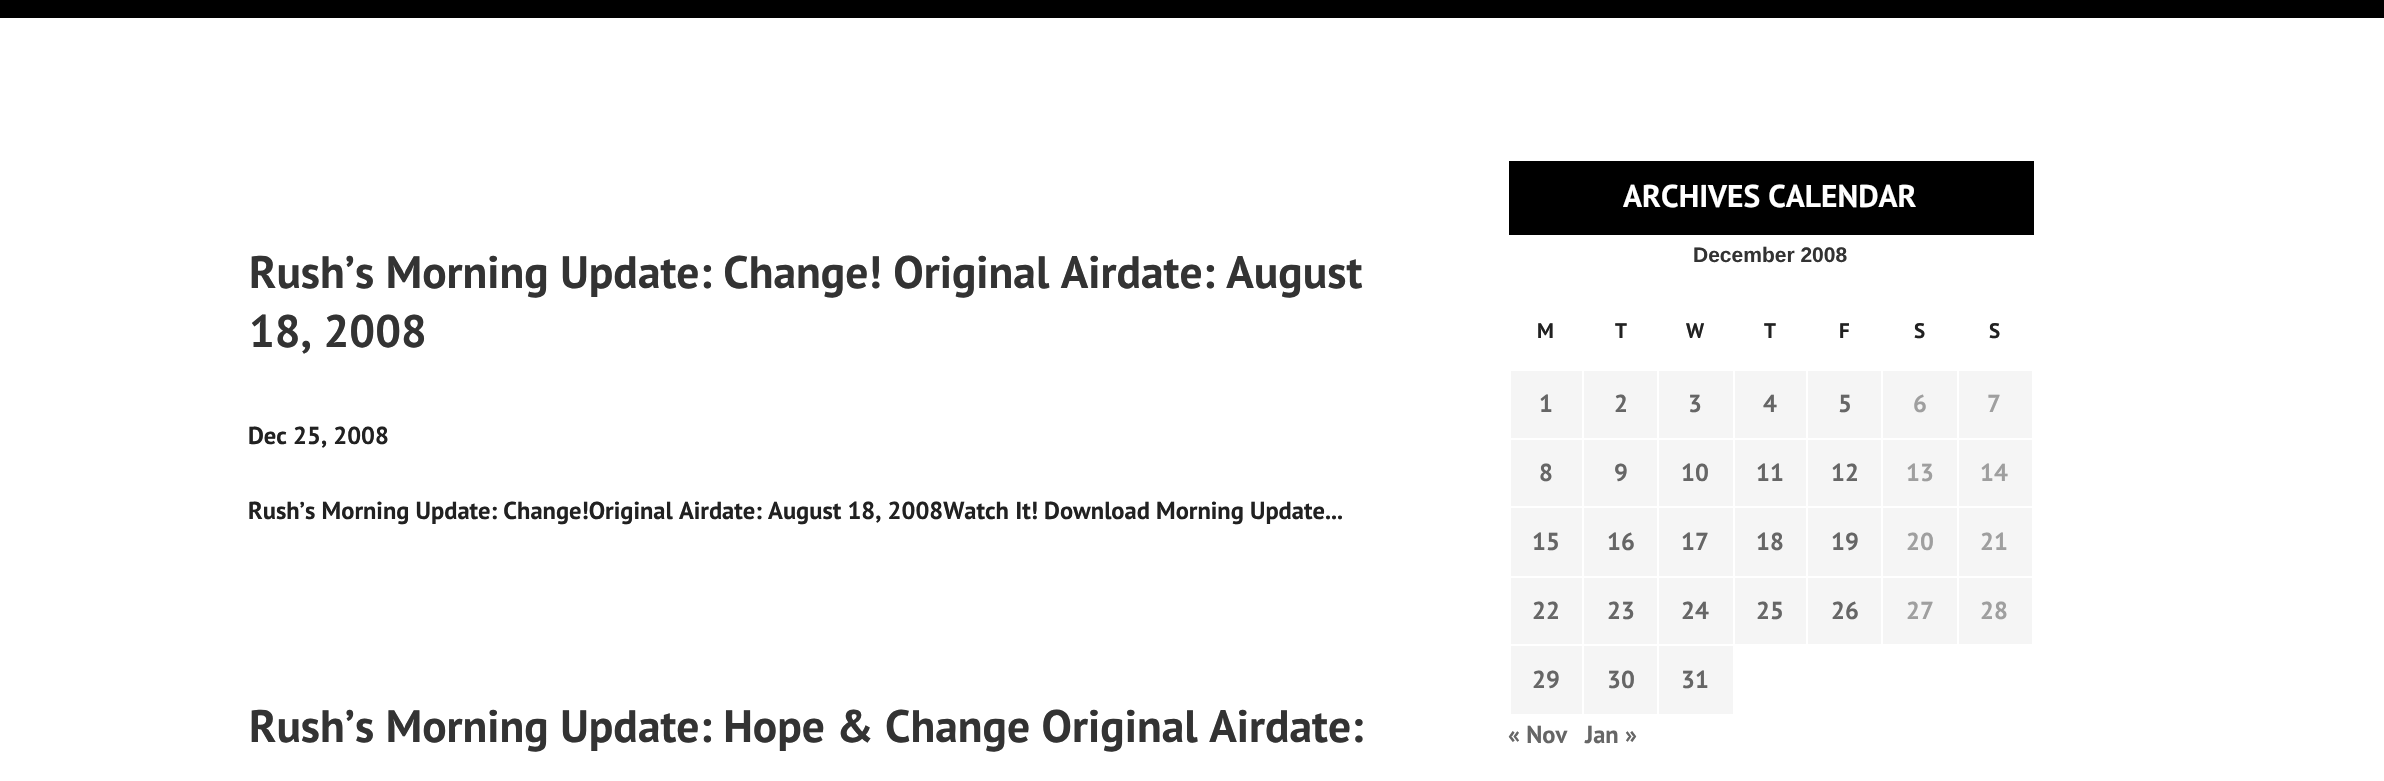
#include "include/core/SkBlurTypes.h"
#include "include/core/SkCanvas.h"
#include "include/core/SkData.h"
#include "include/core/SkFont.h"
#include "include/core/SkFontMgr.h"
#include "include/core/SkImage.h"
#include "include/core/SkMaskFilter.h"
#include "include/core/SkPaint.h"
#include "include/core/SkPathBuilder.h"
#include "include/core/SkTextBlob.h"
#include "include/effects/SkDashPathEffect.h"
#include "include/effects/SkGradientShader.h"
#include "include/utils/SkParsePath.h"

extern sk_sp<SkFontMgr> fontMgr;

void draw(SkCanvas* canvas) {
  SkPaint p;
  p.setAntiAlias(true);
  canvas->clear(SK_ColorWHITE);
  p.setColor(SK_ColorBLACK);
  canvas->drawRect(SkRect::MakeLTRB(0, 0, 2384, 18), p);
  canvas->drawRect(SkRect::MakeLTRB(1509, 161, 2034, 235), p);
  p.setColor(SkColorSetRGB(245, 245, 245));
  canvas->drawRect(SkRect::MakeLTRB(1511, 371, 1582, 438), p);
  canvas->drawRect(SkRect::MakeLTRB(1584, 371, 1657, 438), p);
  canvas->drawRect(SkRect::MakeLTRB(1659, 371, 1733, 438), p);
  canvas->drawRect(SkRect::MakeLTRB(1735, 371, 1806, 438), p);
  canvas->drawRect(SkRect::MakeLTRB(1808, 371, 1881, 438), p);
  canvas->drawRect(SkRect::MakeLTRB(1883, 371, 1957, 438), p);
  canvas->drawRect(SkRect::MakeLTRB(1959, 371, 2032, 438), p);
  canvas->drawRect(SkRect::MakeLTRB(1511, 440, 1582, 506), p);
  canvas->drawRect(SkRect::MakeLTRB(1584, 440, 1657, 506), p);
  canvas->drawRect(SkRect::MakeLTRB(1659, 440, 1733, 506), p);
  canvas->drawRect(SkRect::MakeLTRB(1735, 440, 1806, 506), p);
  canvas->drawRect(SkRect::MakeLTRB(1808, 440, 1881, 506), p);
  canvas->drawRect(SkRect::MakeLTRB(1883, 440, 1957, 506), p);
  canvas->drawRect(SkRect::MakeLTRB(1959, 440, 2032, 506), p);
  canvas->drawRect(SkRect::MakeLTRB(1511, 508, 1582, 576), p);
  canvas->drawRect(SkRect::MakeLTRB(1584, 508, 1657, 576), p);
  canvas->drawRect(SkRect::MakeLTRB(1659, 508, 1733, 576), p);
  canvas->drawRect(SkRect::MakeLTRB(1735, 508, 1806, 576), p);
  canvas->drawRect(SkRect::MakeLTRB(1808, 508, 1881, 576), p);
  canvas->drawRect(SkRect::MakeLTRB(1883, 508, 1957, 576), p);
  canvas->drawRect(SkRect::MakeLTRB(1959, 508, 2032, 576), p);
  canvas->drawRect(SkRect::MakeLTRB(1511, 578, 1582, 644), p);
  canvas->drawRect(SkRect::MakeLTRB(1584, 578, 1657, 644), p);
  canvas->drawRect(SkRect::MakeLTRB(1659, 578, 1733, 644), p);
  canvas->drawRect(SkRect::MakeLTRB(1735, 578, 1806, 644), p);
  canvas->drawRect(SkRect::MakeLTRB(1808, 578, 1881, 644), p);
  canvas->drawRect(SkRect::MakeLTRB(1883, 578, 1957, 644), p);
  canvas->drawRect(SkRect::MakeLTRB(1959, 578, 2032, 644), p);
  canvas->drawRect(SkRect::MakeLTRB(1511, 646, 1582, 714), p);
  canvas->drawRect(SkRect::MakeLTRB(1584, 646, 1657, 714), p);
  canvas->drawRect(SkRect::MakeLTRB(1659, 646, 1733, 714), p);
  SkFont font1(fontMgr->matchFamilyStyle("PT Sans", SkFontStyle::Bold()), 45.5f);
  font1.setSubpixel(true);
  p.setColor(SkColorSetRGB(51, 51, 51));
  canvas->drawString("Rush’s Morning Update: Change! Original Airdate: August", 249, 288, font1, p);
  canvas->drawString("18, 2008", 249, 347, font1, p);
  SkFont font2(fontMgr->matchFamilyStyle("PT Sans", SkFontStyle::Bold()), 24.5f);
  font2.setSubpixel(true);
  p.setColor(SkColorSetRGB(33, 33, 33));
  canvas->drawString("Dec 25, 2008", 248, 444, font2, p);
  canvas->drawString("Rush’s Morning Update: Change!Original Airdate: August 18, 2008Watch It! Download Morning Update...", 248, 519, font2, p);
  p.setColor(SkColorSetRGB(51, 51, 51));
  canvas->drawString("Rush’s Morning Update: Hope & Change Original Airdate:", 249, 742, font1, p);
  SkFont font3(fontMgr->matchFamilyStyle("PT Sans", SkFontStyle::Bold()), 31.5f);
  font3.setSubpixel(true);
  p.setColor(SK_ColorWHITE);
  canvas->drawString("ARCHIVES CALENDAR", 1623, 207, font3, p);
  SkFont font4(fontMgr->matchFamilyStyle("Liberation Sans", SkFontStyle::Bold()), 21);
  font4.setSubpixel(true);
  p.setColor(SkColorSetRGB(51, 51, 51));
  canvas->drawString("December 2008", 1693, 262, font4, p);
  SkFont font5(fontMgr->matchFamilyStyle("PT Sans", SkFontStyle::Bold()), 21);
  font5.setSubpixel(true);
  p.setColor(SkColorSetRGB(33, 33, 33));
  canvas->drawString("M", 1537, 338, font5, p);
  canvas->drawString("T", 1615, 338, font5, p);
  canvas->drawString("W", 1686, 338, font5, p);
  canvas->drawString("T", 1764, 338, font5, p);
  canvas->drawString("F", 1839, 338, font5, p);
  canvas->drawString("S", 1914, 338, font5, p);
  canvas->drawString("S", 1989, 338, font5, p);
  p.setColor(SkColorSetRGB(102, 102, 102));
  canvas->drawString("1", 1539, 412, font2, p);
  canvas->drawString("2", 1614, 412, font2, p);
  canvas->drawString("3", 1688, 412, font2, p);
  canvas->drawString("4", 1763, 412, font2, p);
  canvas->drawString("5", 1838, 412, font2, p);
  p.setColor(SkColorSetRGB(159, 159, 159));
  canvas->drawString("6", 1913, 412, font2, p);
  canvas->drawString("7", 1987, 412, font2, p);
  p.setColor(SkColorSetRGB(102, 102, 102));
  canvas->drawString("8", 1539, 481, font2, p);
  canvas->drawString("9", 1614, 481, font2, p);
  canvas->drawString("10", 1681, 481, font2, p);
  canvas->drawString("11", 1756, 481, font2, p);
  canvas->drawString("12", 1831, 481, font2, p);
  p.setColor(SkColorSetRGB(159, 159, 159));
  canvas->drawString("13", 1906, 481, font2, p);
  canvas->drawString("14", 1980, 481, font2, p);
  p.setColor(SkColorSetRGB(102, 102, 102));
  canvas->drawString("15", 1532, 550, font2, p);
  canvas->drawString("16", 1607, 550, font2, p);
  canvas->drawString("17", 1681, 550, font2, p);
  canvas->drawString("18", 1756, 550, font2, p);
  canvas->drawString("19", 1831, 550, font2, p);
  p.setColor(SkColorSetRGB(159, 159, 159));
  canvas->drawString("20", 1906, 550, font2, p);
  canvas->drawString("21", 1980, 550, font2, p);
  p.setColor(SkColorSetRGB(102, 102, 102));
  canvas->drawString("22", 1532, 619, font2, p);
  canvas->drawString("23", 1607, 619, font2, p);
  canvas->drawString("24", 1681, 619, font2, p);
  canvas->drawString("25", 1756, 619, font2, p);
  canvas->drawString("26", 1831, 619, font2, p);
  p.setColor(SkColorSetRGB(159, 159, 159));
  canvas->drawString("27", 1906, 619, font2, p);
  canvas->drawString("28", 1980, 619, font2, p);
  p.setColor(SkColorSetRGB(102, 102, 102));
  canvas->drawString("29", 1532, 688, font2, p);
  canvas->drawString("30", 1607, 688, font2, p);
  canvas->drawString("31", 1681, 688, font2, p);
  canvas->drawString("« Nov", 1508, 743, font2, p);
  canvas->drawString("Jan »", 1585, 743, font2, p);
}
